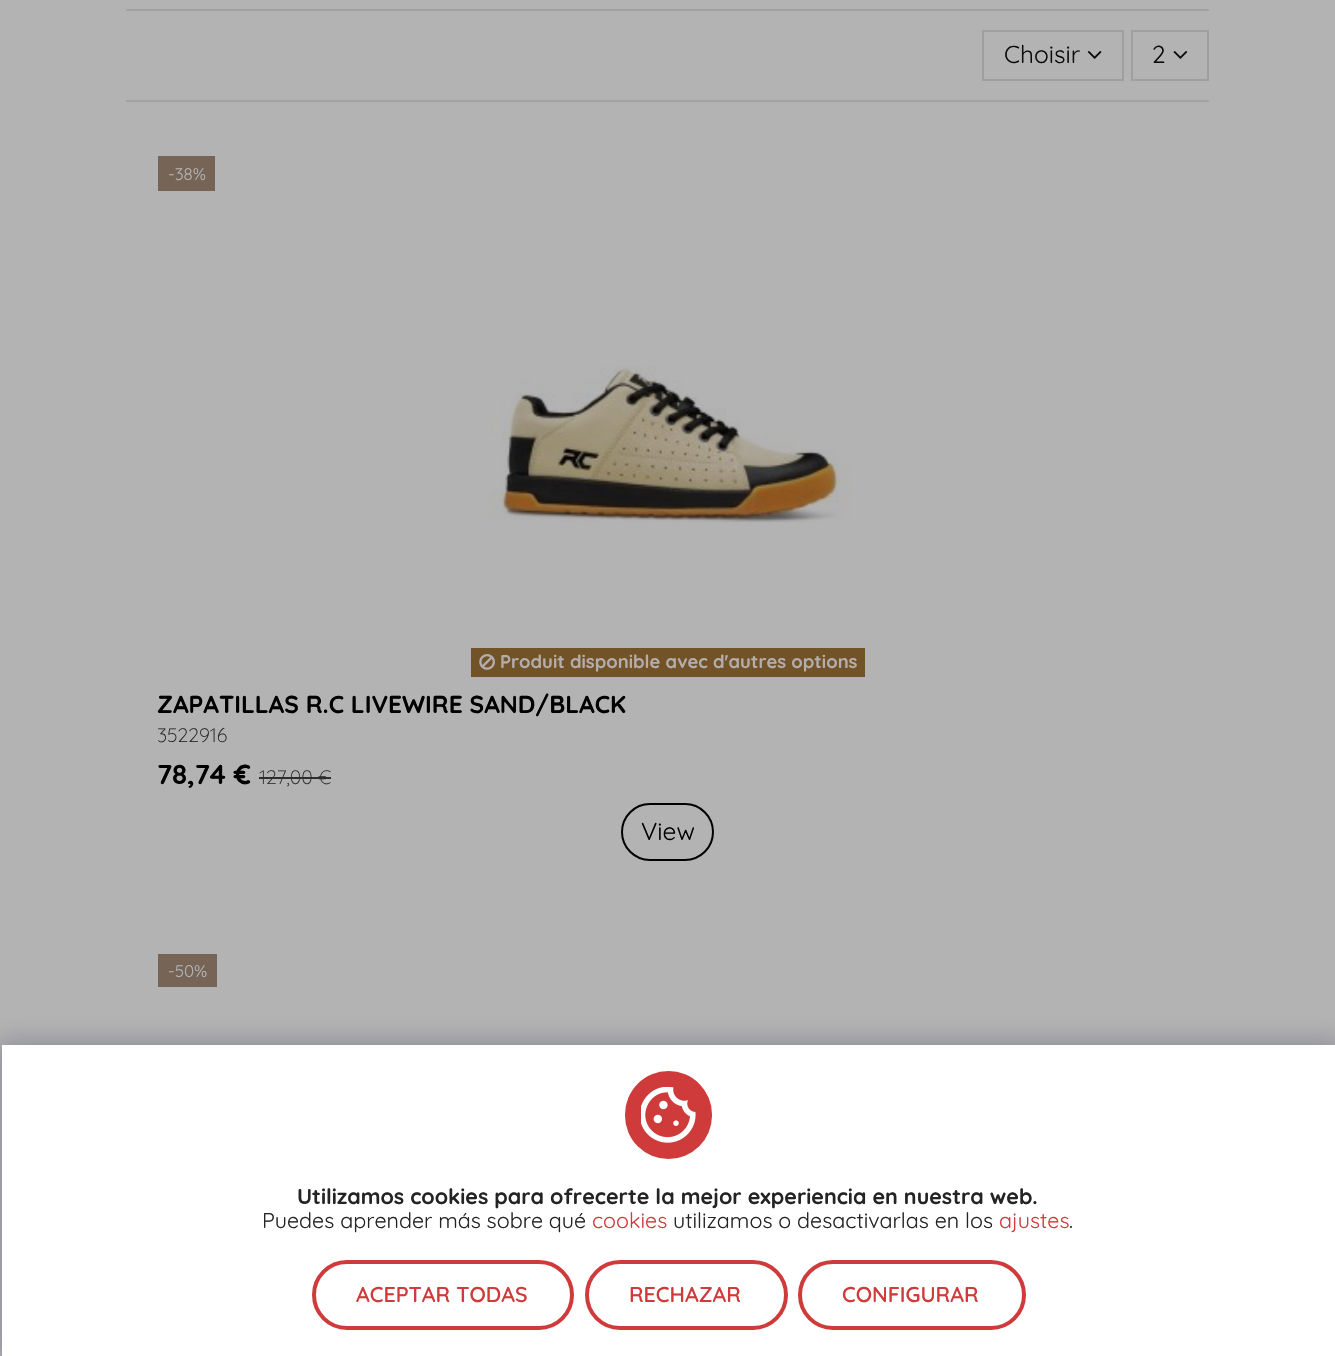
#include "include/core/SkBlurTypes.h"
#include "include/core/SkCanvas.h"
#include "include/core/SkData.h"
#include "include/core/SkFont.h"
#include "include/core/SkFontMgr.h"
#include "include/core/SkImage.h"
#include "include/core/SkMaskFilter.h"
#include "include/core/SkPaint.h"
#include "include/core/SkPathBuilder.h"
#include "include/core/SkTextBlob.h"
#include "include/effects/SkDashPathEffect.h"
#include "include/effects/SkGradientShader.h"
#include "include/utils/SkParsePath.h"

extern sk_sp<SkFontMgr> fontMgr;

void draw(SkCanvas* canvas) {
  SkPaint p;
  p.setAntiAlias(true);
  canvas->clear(SkColorSetRGB(179, 179, 179));
  p.setColor(SkColorSetRGB(162, 162, 162));
  canvas->drawRect(SkRect::MakeLTRB(126, 9, 1209, 11), p);
  canvas->drawRect(SkRect::MakeLTRB(126, 100, 1209, 102), p);
  p.setStyle(SkPaint::kStroke_Style);
  p.setStrokeWidth(2);
  p.setColor(SkColorSetRGB(159, 159, 159));
  canvas->drawRect(SkRect::MakeLTRB(983, 31, 1123, 80), p);
  canvas->drawImageRect(SkImages::DeferredFromEncodedData(SkData::MakeFromFileName("images/1.png")), SkRect::MakeLTRB(1087, 51, 1102, 59), SkSamplingOptions());
  canvas->drawRect(SkRect::MakeLTRB(1132, 31, 1208, 80), p);
  canvas->drawImageRect(SkImages::DeferredFromEncodedData(SkData::MakeFromFileName("images/2.png")), SkRect::MakeLTRB(1173, 51, 1188, 59), SkSamplingOptions());
  p.setStyle(SkPaint::kFill_Style);
  p.setColor(SkColorSetRGB(118, 100, 86));
  canvas->drawRect(SkRect::MakeLTRB(158, 156, 215, 191), p);
  canvas->drawImageRect(SkImages::DeferredFromEncodedData(SkData::MakeFromFileName("images/3.png")), SkRect::MakeLTRB(489, 366, 851, 523), SkSamplingOptions());
  p.setColor(SkColorSetRGB(113, 83, 39));
  canvas->drawRect(SkRect::MakeLTRB(471, 648, 865, 677), p);
  canvas->drawImageRect(SkImages::DeferredFromEncodedData(SkData::MakeFromFileName("images/4.png")), SkRect::MakeLTRB(479, 654, 495, 670), SkSamplingOptions());
  p.setColor(SkColorSetRGB(46, 46, 46));
  canvas->drawRect(SkRect::MakeLTRB(259, 777, 331, 779), p);
  p.setStyle(SkPaint::kStroke_Style);
  p.setColor(SK_ColorBLACK);
  canvas->drawRoundRect(SkRect::MakeLTRB(622, 804, 713, 860), 28, 28, p);
  p.setStyle(SkPaint::kFill_Style);
  p.setColor(SkColorSetRGB(118, 100, 86));
  canvas->drawRect(SkRect::MakeLTRB(158, 954, 217, 987), p);
  canvas->save();
  canvas->clipPath(SkPathBuilder(SkPathFillType::kEvenOdd).moveTo(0, 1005).lineTo(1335, 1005).lineTo(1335, 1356).lineTo(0, 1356).close().moveTo(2, 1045).lineTo(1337, 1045).lineTo(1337, 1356).lineTo(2, 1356).close().detach(), true);
  p.setColor(SkColorSetARGB(77, 50, 50, 93));
  p.setMaskFilter(SkMaskFilter::MakeBlur(kNormal_SkBlurStyle, 11.5f));
  canvas->drawRect(SkRect::MakeLTRB(-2, 1041, 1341, 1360), p);
  p.setMaskFilter(nullptr);
  canvas->restore();
  p.setColor(SK_ColorWHITE);
  canvas->drawRect(SkRect::MakeLTRB(2, 1045, 1335, 1356), p);
  p.setColor(SkColorSetRGB(207, 58, 58));
  canvas->drawRoundRect(SkRect::MakeLTRB(625, 1071, 712, 1159), 43.5f, 43.5f, p);
  canvas->drawImageRect(SkImages::DeferredFromEncodedData(SkData::MakeFromFileName("images/5.png")), SkRect::MakeLTRB(641, 1087, 696, 1143), SkSamplingOptions());
  p.setStyle(SkPaint::kStroke_Style);
  p.setStrokeWidth(4);
  canvas->drawRoundRect(SkRect::MakeLTRB(314, 1262, 572, 1328), 33, 33, p);
  canvas->drawRoundRect(SkRect::MakeLTRB(587, 1262, 786, 1328), 33, 33, p);
  canvas->drawRoundRect(SkRect::MakeLTRB(800, 1262, 1024, 1328), 33, 33, p);
  SkFont font1(fontMgr->matchFamilyStyle("Quicksand", SkFontStyle::Normal()), 24.5f);
  font1.setSubpixel(true);
  p.setStyle(SkPaint::kFill_Style);
  p.setColor(SkColorSetRGB(12, 12, 12));
  canvas->drawString("Choisir", 1004, 63, font1, p);
  canvas->drawString("2", 1152, 63, font1, p);
  SkFont font2(fontMgr->matchFamilyStyle("Quicksand", SkFontStyle::Normal()), 17);
  font2.setSubpixel(true);
  p.setColor(SkColorSetRGB(179, 179, 179));
  canvas->drawString("-38%", 168, 180, font2, p);
  SkFont font3(fontMgr->matchFamilyStyle("Quicksand", SkFontStyle::Bold()), 18.4f);
  font3.setSubpixel(true);
  p.setColor(SkColorSetRGB(179, 173, 173));
  canvas->drawString("Produit disponible avec d'autres options", 500, 668, font3, p);
  SkFont font4(fontMgr->matchFamilyStyle("Quicksand", SkFontStyle::Bold()), 24.5f);
  font4.setSubpixel(true);
  p.setColor(SK_ColorBLACK);
  canvas->drawString("ZAPATILLAS R.C LIVEWIRE SAND/BLACK", 157, 713, font4, p);
  SkFont font5(fontMgr->matchFamilyStyle("Quicksand", SkFontStyle(300, SkFontStyle::kNormal_Width, SkFontStyle::kUpright_Slant)), 19.5f);
  font5.setSubpixel(true);
  p.setColor(SkColorSetRGB(36, 36, 36));
  canvas->drawString("3522916", 157, 742, font5, p);
  SkFont font6(fontMgr->matchFamilyStyle("Quicksand", SkFontStyle::Bold()), 27.5f);
  font6.setSubpixel(true);
  p.setColor(SK_ColorBLACK);
  canvas->drawString("78,74 €", 157, 784, font6, p);
  p.setColor(SkColorSetRGB(46, 46, 46));
  canvas->drawString("127,00 €", 259, 784, font5, p);
  p.setColor(SK_ColorBLACK);
  canvas->drawString("View", 641, 840, font1, p);
  p.setColor(SkColorSetRGB(179, 179, 179));
  canvas->drawString("-50%", 168, 977, font2, p);
  SkFont font7(fontMgr->matchFamilyStyle("Quicksand", SkFontStyle::Bold()), 21.45f);
  font7.setSubpixel(true);
  p.setColor(SkColorSetRGB(36, 36, 36));
  canvas->drawString("Utilizamos cookies para ofrecerte la mejor experiencia en nuestra web.", 297, 1204, font7, p);
  SkFont font8(fontMgr->matchFamilyStyle("Quicksand", SkFontStyle::Normal()), 21.45f);
  font8.setSubpixel(true);
  canvas->drawString("Puedes aprender más sobre qué", 262, 1228, font8, p);
  p.setColor(SkColorSetRGB(207, 58, 58));
  canvas->drawString("cookies", 592, 1228, font8, p);
  p.setColor(SkColorSetRGB(36, 36, 36));
  canvas->drawString("utilizamos o desactivarlas en los", 673, 1228, font8, p);
  p.setColor(SkColorSetRGB(207, 58, 58));
  canvas->drawString("ajustes", 999, 1228, font8, p);
  p.setColor(SkColorSetRGB(36, 36, 36));
  canvas->drawString(".", 1069, 1228, font8, p);
  SkFont font9(fontMgr->matchFamilyStyle("Quicksand", SkFontStyle(600, SkFontStyle::kNormal_Width, SkFontStyle::kUpright_Slant)), 21.45f);
  font9.setSubpixel(true);
  p.setColor(SkColorSetRGB(207, 58, 58));
  canvas->drawString("ACEPTAR TODAS", 356, 1302, font9, p);
  canvas->drawString("RECHAZAR", 629, 1302, font9, p);
  canvas->drawString("CONFIGURAR", 842, 1302, font9, p);
}
